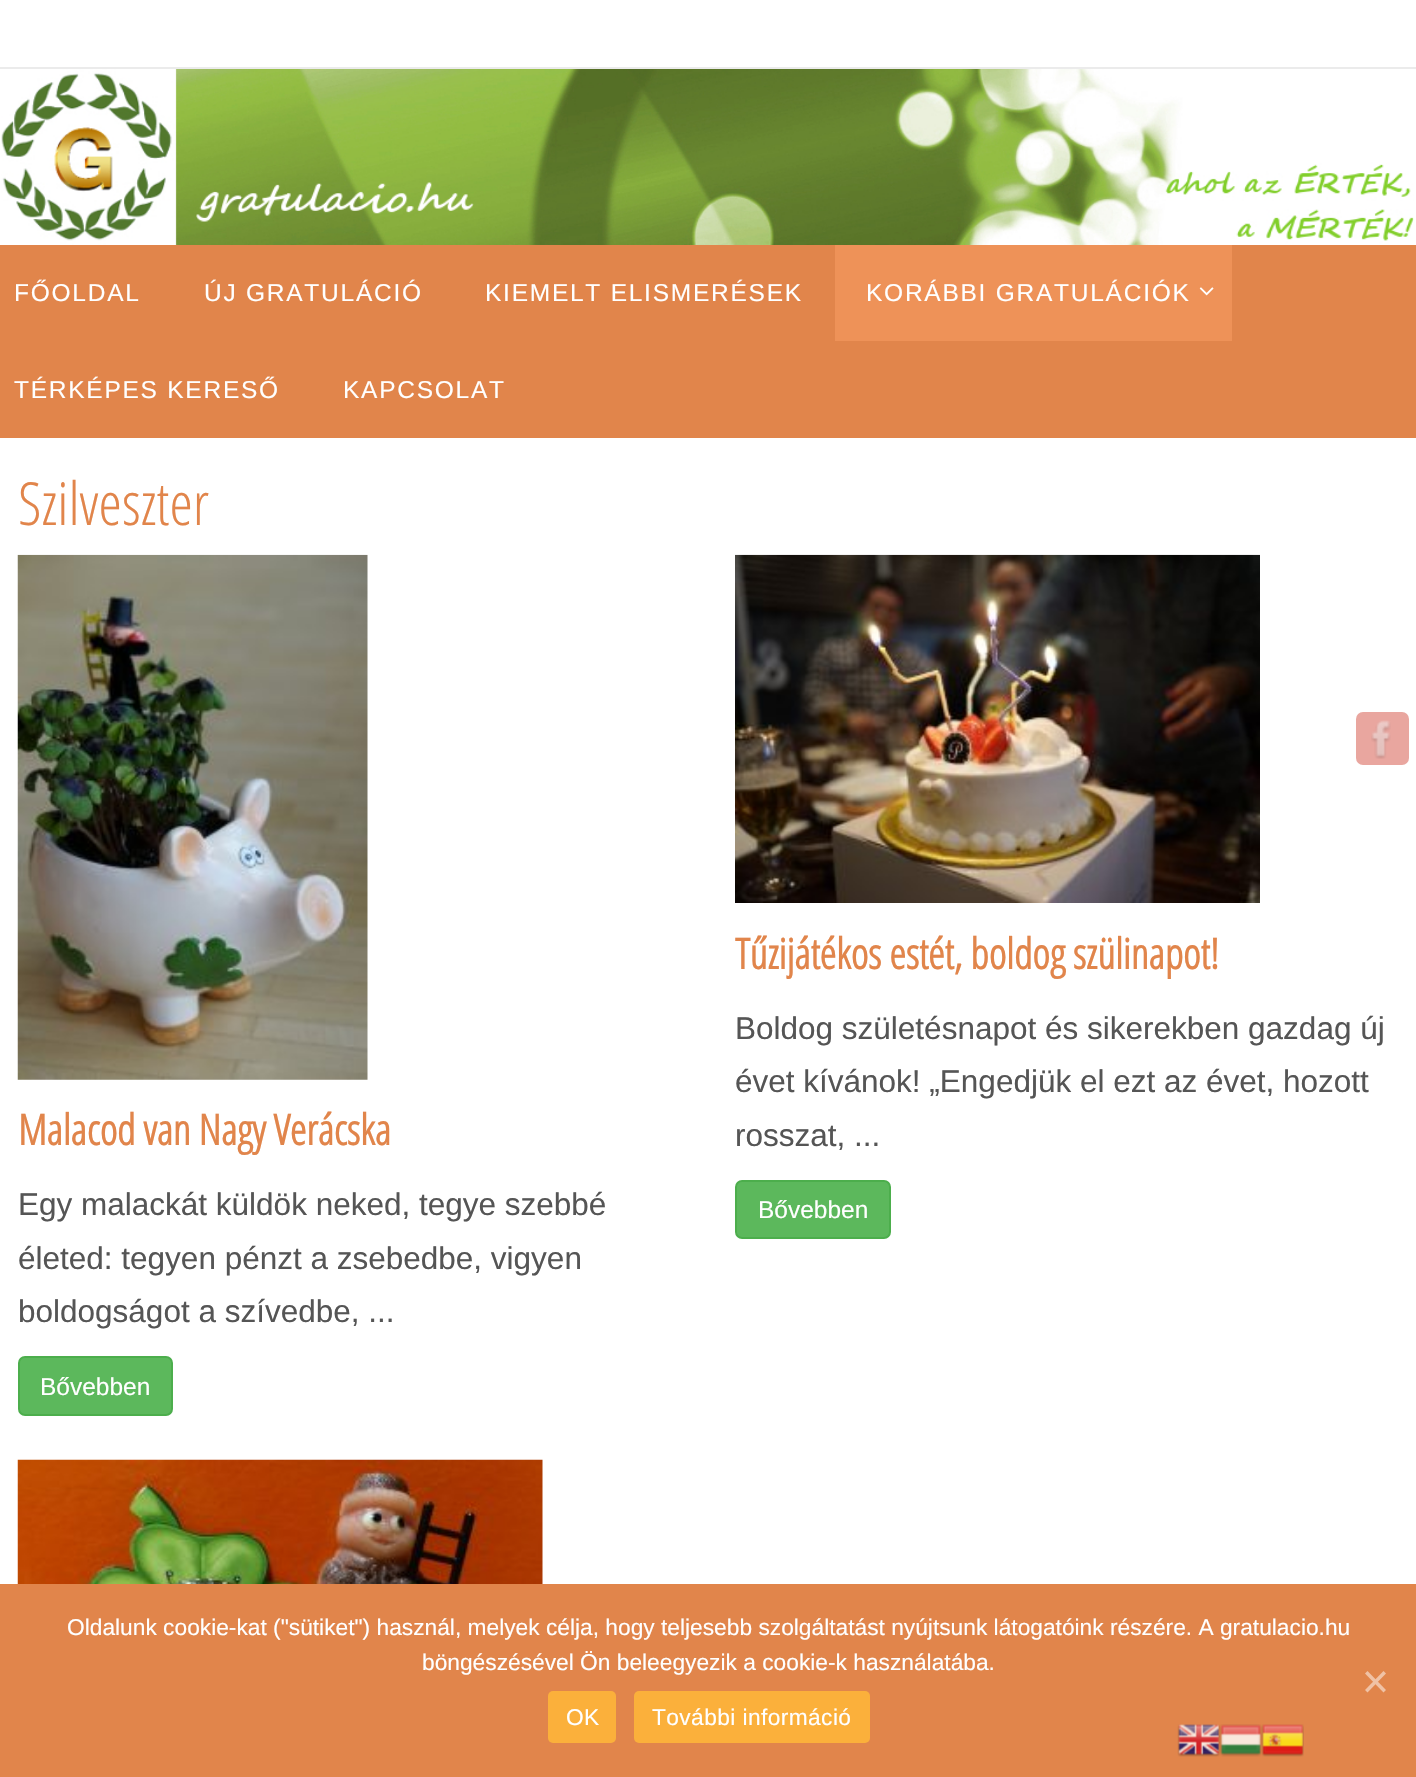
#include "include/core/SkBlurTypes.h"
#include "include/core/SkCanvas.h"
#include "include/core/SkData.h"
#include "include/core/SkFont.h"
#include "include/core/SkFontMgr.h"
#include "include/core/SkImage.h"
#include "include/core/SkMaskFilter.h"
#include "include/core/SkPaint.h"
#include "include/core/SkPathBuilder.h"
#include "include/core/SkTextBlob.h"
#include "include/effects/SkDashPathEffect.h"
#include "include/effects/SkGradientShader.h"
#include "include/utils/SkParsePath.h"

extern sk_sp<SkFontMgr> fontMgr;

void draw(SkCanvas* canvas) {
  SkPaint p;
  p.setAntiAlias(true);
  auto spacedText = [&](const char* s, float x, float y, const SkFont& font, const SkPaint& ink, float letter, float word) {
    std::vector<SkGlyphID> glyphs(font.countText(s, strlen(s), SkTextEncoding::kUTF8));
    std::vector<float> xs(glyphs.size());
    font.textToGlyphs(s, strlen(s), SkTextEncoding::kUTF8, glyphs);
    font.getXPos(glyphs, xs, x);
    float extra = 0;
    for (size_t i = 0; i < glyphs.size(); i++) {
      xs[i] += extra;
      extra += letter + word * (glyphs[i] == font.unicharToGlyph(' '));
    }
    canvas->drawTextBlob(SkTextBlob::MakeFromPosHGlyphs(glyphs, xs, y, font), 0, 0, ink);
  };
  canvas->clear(SK_ColorWHITE);
  p.setColor(SkColorSetRGB(235, 235, 235));
  canvas->drawRect(SkRect::MakeLTRB(0, 67, 1416, 69), p);
  canvas->drawImageRect(SkImages::DeferredFromEncodedData(SkData::MakeFromFileName("images/1.png")), SkRect::MakeLTRB(1, 69, 1414, 245), SkSamplingOptions());
  p.setColor(SkColorSetRGB(225, 133, 75));
  canvas->drawRect(SkRect::MakeLTRB(0, 245, 1416, 438), p);
  p.setColor(SkColorSetRGB(238, 146, 88));
  canvas->drawRect(SkRect::MakeLTRB(835, 245, 1232, 341), p);
  canvas->drawImageRect(SkImages::DeferredFromEncodedData(SkData::MakeFromFileName("images/2.png")), SkRect::MakeLTRB(1199, 287, 1214, 296), SkSamplingOptions());
  canvas->drawImageRect(SkImages::DeferredFromEncodedData(SkData::MakeFromFileName("images/3.png")), SkRect::MakeLTRB(735, 554, 1260, 903), SkSamplingOptions());
  p.setColor(SkColorSetRGB(92, 184, 92));
  canvas->drawRoundRect(SkRect::MakeLTRB(736, 1181, 890, 1238), 6, 6, p);
  p.setStyle(SkPaint::kStroke_Style);
  p.setStrokeWidth(2);
  p.setColor(SkColorSetRGB(76, 174, 76));
  canvas->drawRoundRect(SkRect::MakeLTRB(736, 1181, 890, 1238), 6, 6, p);
  canvas->drawImageRect(SkImages::DeferredFromEncodedData(SkData::MakeFromFileName("images/4.png")), SkRect::MakeLTRB(17, 554, 368, 1080), SkSamplingOptions());
  p.setStyle(SkPaint::kFill_Style);
  p.setColor(SkColorSetRGB(92, 184, 92));
  canvas->drawRoundRect(SkRect::MakeLTRB(19, 1357, 172, 1415), 6, 6, p);
  p.setStyle(SkPaint::kStroke_Style);
  p.setColor(SkColorSetRGB(76, 174, 76));
  canvas->drawRoundRect(SkRect::MakeLTRB(19, 1357, 172, 1415), 6, 6, p);
  canvas->drawImageRect(SkImages::DeferredFromEncodedData(SkData::MakeFromFileName("images/5.png")), SkRect::MakeLTRB(17, 1459, 543, 1584), SkSamplingOptions());
  p.setStyle(SkPaint::kFill_Style);
  p.setColor(SkColorSetRGB(233, 166, 159));
  canvas->drawRoundRect(SkRect::MakeLTRB(1356, 712, 1409, 765), 7, 7, p);
  canvas->drawImageRect(SkImages::DeferredFromEncodedData(SkData::MakeFromFileName("images/6.png")), SkRect::MakeLTRB(1371, 720, 1391, 759), SkSamplingOptions());
  p.setColor(SkColorSetRGB(225, 133, 75));
  canvas->drawRect(SkRect::MakeLTRB(0, 1584, 1416, 1777), p);
  p.setColor(SkColorSetRGB(240, 194, 165));
  canvas->drawPath(SkPathBuilder().moveTo(1383.5f, 1671).lineTo(1386, 1673.5f).lineTo(1367.5f, 1692.5f).lineTo(1365, 1690).close().detach(), p);
  canvas->drawPath(SkPathBuilder().moveTo(1365, 1673.5f).lineTo(1367.5f, 1671).lineTo(1386, 1690).lineTo(1383.5f, 1692.5f).close().detach(), p);
  p.setColor(SkColorSetRGB(251, 176, 59));
  canvas->drawRoundRect(SkRect::MakeLTRB(548, 1691, 616, 1743), 5, 5, p);
  canvas->drawRoundRect(SkRect::MakeLTRB(634, 1691, 870, 1743), 5, 5, p);
  canvas->drawImageRect(SkImages::DeferredFromEncodedData(SkData::MakeFromFileName("images/7.png")), SkRect::MakeLTRB(1177, 1724, 1220, 1757), SkSamplingOptions());
  canvas->drawImageRect(SkImages::DeferredFromEncodedData(SkData::MakeFromFileName("images/8.png")), SkRect::MakeLTRB(1219, 1724, 1262, 1757), SkSamplingOptions());
  canvas->drawImageRect(SkImages::DeferredFromEncodedData(SkData::MakeFromFileName("images/9.png")), SkRect::MakeLTRB(1261, 1724, 1304, 1757), SkSamplingOptions());
  SkFont font1(fontMgr->matchFamilyStyle("Liberation Sans", SkFontStyle::Normal()), 24.5f);
  font1.setSubpixel(true);
  p.setColor(SK_ColorWHITE);
  spacedText("FŐOLDAL", 14, 301, font1, p, 1.75f, 0);
  spacedText("ÚJ GRATULÁCIÓ", 204, 301, font1, p, 1.75f, 0);
  spacedText("KIEMELT ELISMERÉSEK", 485, 301, font1, p, 1.75f, 0);
  spacedText("KORÁBBI GRATULÁCIÓK", 866, 301, font1, p, 1.75f, 0);
  spacedText("TÉRKÉPES KERESŐ", 14, 398, font1, p, 1.75f, 0);
  spacedText("KAPCSOLAT", 343, 398, font1, p, 1.75f, 0);
  SkFont font2(fontMgr->matchFamilyStyle("Open Sans Condensed", SkFontStyle(300, SkFontStyle::kNormal_Width, SkFontStyle::kUpright_Slant)), 59.5f);
  font2.setSubpixel(true);
  p.setColor(SkColorSetRGB(225, 133, 75));
  canvas->drawString("Szilveszter", 18, 525, font2, p);
  SkFont font3(fontMgr->matchFamilyStyle("Open Sans Condensed", SkFontStyle::Bold()), 42);
  font3.setSubpixel(true);
  canvas->drawString("Tűzijátékos estét, boldog szülinapot!", 735, 969, font3, p);
  SkFont font4(fontMgr->matchFamilyStyle("Liberation Sans", SkFontStyle::Normal()), 31.5f);
  font4.setSubpixel(true);
  p.setColor(SkColorSetRGB(85, 85, 85));
  canvas->drawString("Boldog születésnapot és sikerekben gazdag új", 735, 1039, font4, p);
  canvas->drawString("évet kívánok! „Engedjük el ezt az évet, hozott", 735, 1092, font4, p);
  canvas->drawString("rosszat, ...", 735, 1146, font4, p);
  p.setColor(SK_ColorWHITE);
  canvas->drawString("Bővebben", 758, 1218, font1, p);
  p.setColor(SkColorSetRGB(225, 133, 75));
  canvas->drawString("Malacod van Nagy Verácska", 18, 1145, font3, p);
  p.setColor(SkColorSetRGB(85, 85, 85));
  canvas->drawString("Egy malackát küldök neked, tegye szebbé", 18, 1215, font4, p);
  canvas->drawString("életed: tegyen pénzt a zsebedbe, vigyen", 18, 1269, font4, p);
  canvas->drawString("boldogságot a szívedbe, ...", 18, 1322, font4, p);
  p.setColor(SK_ColorWHITE);
  canvas->drawString("Bővebben", 40, 1395, font1, p);
  SkFont font5(fontMgr->matchFamilyStyle("Liberation Sans", SkFontStyle::Normal()), 22.75f);
  font5.setSubpixel(true);
  canvas->drawString("Oldalunk cookie-kat (\"sütiket\") használ, melyek célja, hogy teljesebb szolgáltatást nyújtsunk látogatóink részére. A gratulacio.hu", 67, 1635, font5, p);
  canvas->drawString("böngészésével Ön beleegyezik a cookie-k használatába.", 422, 1670, font5, p);
  spacedText("OK", 566, 1725, font5, p, 0.4f, 0);
  spacedText("További információ", 652, 1725, font5, p, 0.4f, 0);
}
